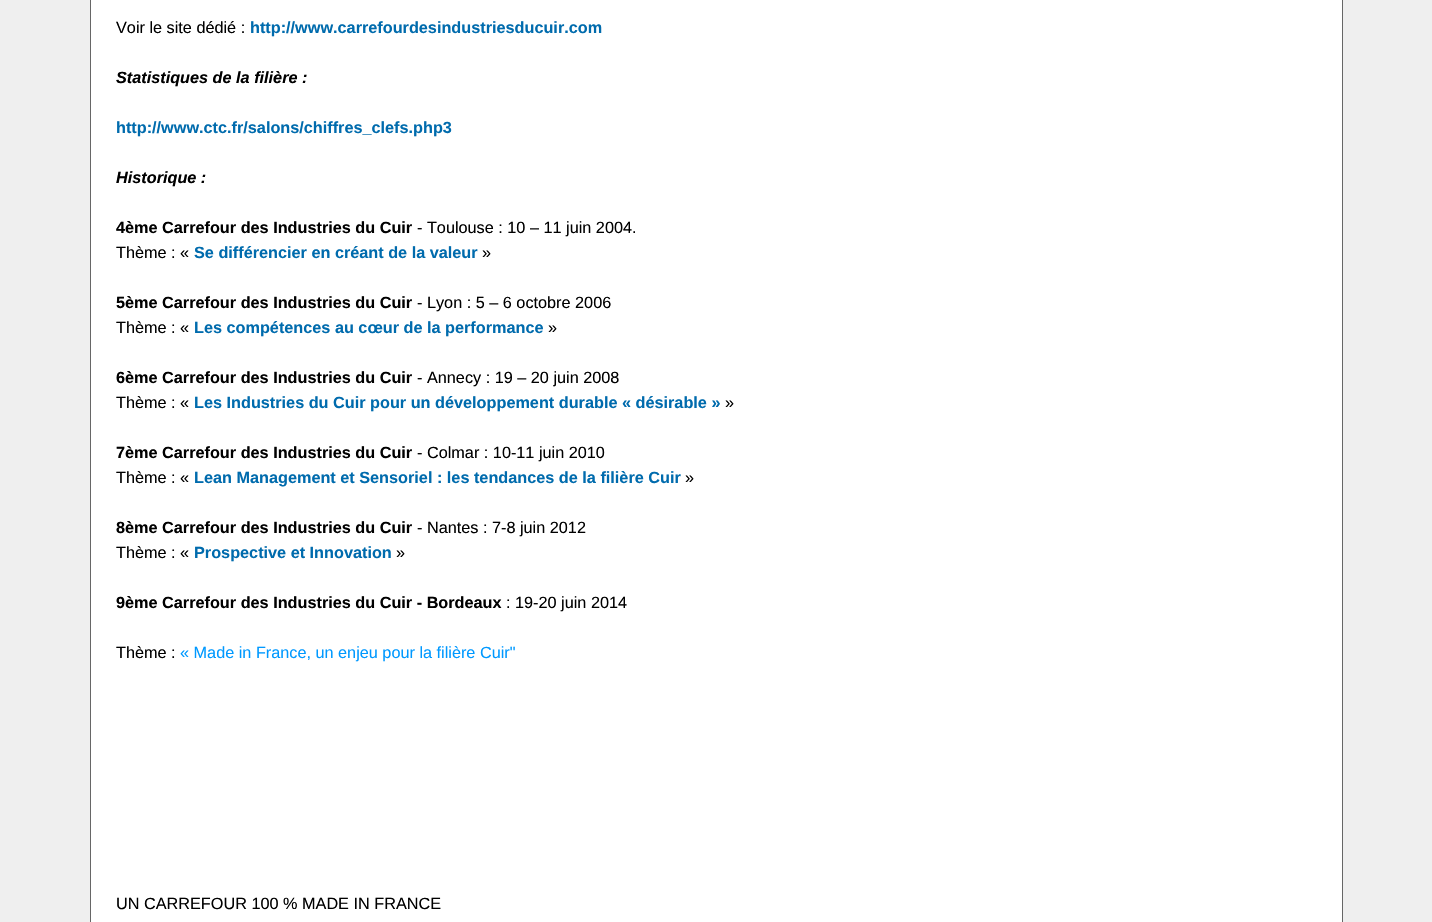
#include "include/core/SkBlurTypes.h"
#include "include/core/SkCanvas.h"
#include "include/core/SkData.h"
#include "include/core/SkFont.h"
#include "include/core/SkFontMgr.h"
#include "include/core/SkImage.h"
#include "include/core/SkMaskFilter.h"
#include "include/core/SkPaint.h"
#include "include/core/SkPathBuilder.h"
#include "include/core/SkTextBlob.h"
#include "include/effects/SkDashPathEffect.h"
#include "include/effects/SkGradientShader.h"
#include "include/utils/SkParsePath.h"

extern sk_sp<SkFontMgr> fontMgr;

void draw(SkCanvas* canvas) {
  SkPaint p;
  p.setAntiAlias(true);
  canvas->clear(SkColorSetRGB(239, 239, 239));
  p.setColor(SK_ColorWHITE);
  canvas->drawRect(SkRect::MakeLTRB(90.5f, -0.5f, 1342.5f, 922.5f), p);
  p.setStyle(SkPaint::kStroke_Style);
  p.setStrokeWidth(1);
  p.setColor(SkColorSetRGB(102, 102, 102));
  canvas->drawRect(SkRect::MakeLTRB(90.5f, -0.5f, 1342.5f, 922.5f), p);
  SkFont font1(fontMgr->matchFamilyStyle("Liberation Sans", SkFontStyle::Normal()), 16.25f);
  font1.setSubpixel(true);
  p.setStyle(SkPaint::kFill_Style);
  p.setColor(SK_ColorBLACK);
  canvas->drawString("Voir le site dédié :", 116, 33, font1, p);
  SkFont font2(fontMgr->matchFamilyStyle("Liberation Sans", SkFontStyle::Bold()), 16.25f);
  font2.setSubpixel(true);
  p.setColor(SkColorSetRGB(0, 107, 173));
  canvas->drawString("http://www.carrefourdesindustriesducuir.com", 250, 33, font2, p);
  SkFont font3(fontMgr->matchFamilyStyle("Liberation Sans", SkFontStyle::BoldItalic()), 16.25f);
  font3.setSubpixel(true);
  p.setColor(SK_ColorBLACK);
  canvas->drawString("Statistiques de la filière :", 116, 83, font3, p);
  p.setColor(SkColorSetRGB(0, 107, 173));
  canvas->drawString("http://www.ctc.fr/salons/chiffres_clefs.php3", 116, 133, font2, p);
  p.setColor(SK_ColorBLACK);
  canvas->drawString("Historique :", 116, 183, font3, p);
  canvas->drawString("4ème Carrefour des Industries du Cuir", 116, 233, font2, p);
  canvas->drawString("- Toulouse : 10 – 11 juin 2004.", 417, 233, font1, p);
  canvas->drawString("Thème : «", 116, 258, font1, p);
  p.setColor(SkColorSetRGB(0, 107, 173));
  canvas->drawString("Se différencier en créant de la valeur", 194, 258, font2, p);
  p.setColor(SK_ColorBLACK);
  canvas->drawString("»", 482, 258, font1, p);
  canvas->drawString("5ème Carrefour des Industries du Cuir", 116, 308, font2, p);
  canvas->drawString("- Lyon : 5 – 6 octobre 2006", 417, 308, font1, p);
  canvas->drawString("Thème : «", 116, 333, font1, p);
  p.setColor(SkColorSetRGB(0, 107, 173));
  canvas->drawString("Les compétences au cœur de la performance", 194, 333, font2, p);
  p.setColor(SK_ColorBLACK);
  canvas->drawString("»", 548, 333, font1, p);
  canvas->drawString("6ème Carrefour des Industries du Cuir", 116, 383, font2, p);
  canvas->drawString("- Annecy : 19 – 20 juin 2008", 417, 383, font1, p);
  canvas->drawString("Thème : «", 116, 408, font1, p);
  p.setColor(SkColorSetRGB(0, 107, 173));
  canvas->drawString("Les Industries du Cuir pour un développement durable « désirable »", 194, 408, font2, p);
  p.setColor(SK_ColorBLACK);
  canvas->drawString("»", 725, 408, font1, p);
  canvas->drawString("7ème Carrefour des Industries du Cuir", 116, 458, font2, p);
  canvas->drawString("- Colmar : 10-11 juin 2010", 417, 458, font1, p);
  canvas->drawString("Thème : «", 116, 483, font1, p);
  p.setColor(SkColorSetRGB(0, 107, 173));
  canvas->drawString("Lean Management et Sensoriel : les tendances de la filière Cuir", 194, 483, font2, p);
  p.setColor(SK_ColorBLACK);
  canvas->drawString("»", 685, 483, font1, p);
  canvas->drawString("8ème Carrefour des Industries du Cuir", 116, 533, font2, p);
  canvas->drawString("- Nantes : 7-8 juin 2012", 417, 533, font1, p);
  canvas->drawString("Thème : «", 116, 558, font1, p);
  p.setColor(SkColorSetRGB(0, 107, 173));
  canvas->drawString("Prospective et Innovation", 194, 558, font2, p);
  p.setColor(SK_ColorBLACK);
  canvas->drawString("»", 396, 558, font1, p);
  canvas->drawString("9ème Carrefour des Industries du Cuir - Bordeaux", 116, 608, font2, p);
  canvas->drawString(": 19-20 juin 2014", 506, 608, font1, p);
  canvas->drawString("Thème :", 116, 658, font1, p);
  p.setColor(SkColorSetRGB(0, 153, 255));
  canvas->drawString("« Made in France, un enjeu pour la filière Cuir\"", 180, 658, font1, p);
  p.setColor(SK_ColorBLACK);
  canvas->drawString("UN CARREFOUR 100 % MADE IN FRANCE", 116, 909, font1, p);
}
